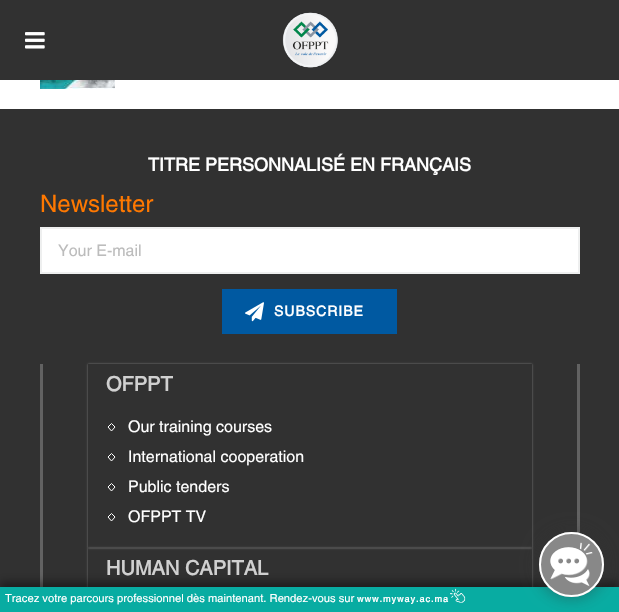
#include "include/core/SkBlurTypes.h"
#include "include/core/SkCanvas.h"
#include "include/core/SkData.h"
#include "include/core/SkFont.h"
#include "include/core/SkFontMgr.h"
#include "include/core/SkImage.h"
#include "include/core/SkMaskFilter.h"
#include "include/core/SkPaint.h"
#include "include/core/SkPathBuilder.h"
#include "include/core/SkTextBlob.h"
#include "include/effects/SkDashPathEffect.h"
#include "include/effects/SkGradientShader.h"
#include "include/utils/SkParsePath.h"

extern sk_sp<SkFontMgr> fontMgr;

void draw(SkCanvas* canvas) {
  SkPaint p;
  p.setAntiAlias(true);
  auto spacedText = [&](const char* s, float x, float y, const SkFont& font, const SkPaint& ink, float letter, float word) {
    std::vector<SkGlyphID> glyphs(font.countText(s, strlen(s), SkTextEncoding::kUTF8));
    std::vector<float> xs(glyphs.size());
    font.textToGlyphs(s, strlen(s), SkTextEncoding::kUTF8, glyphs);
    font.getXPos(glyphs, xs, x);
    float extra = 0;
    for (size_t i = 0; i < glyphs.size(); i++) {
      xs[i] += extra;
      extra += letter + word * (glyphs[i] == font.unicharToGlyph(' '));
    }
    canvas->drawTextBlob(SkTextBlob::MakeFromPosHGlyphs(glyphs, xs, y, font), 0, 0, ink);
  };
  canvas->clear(SK_ColorWHITE);
  p.setColor(SkColorSetRGB(49, 49, 49));
  canvas->drawRect(SkRect::MakeLTRB(0, 0, 619, 80), p);
  canvas->drawImageRect(SkImages::DeferredFromEncodedData(SkData::MakeFromFileName("images/1.png")), SkRect::MakeLTRB(25, 32, 45, 49), SkSamplingOptions());
  canvas->drawImageRect(SkImages::DeferredFromEncodedData(SkData::MakeFromFileName("images/2.png")), SkRect::MakeLTRB(282, 12, 338, 68), SkSamplingOptions());
  canvas->drawImageRect(SkImages::DeferredFromEncodedData(SkData::MakeFromFileName("images/3.png")), SkRect::MakeLTRB(40, 80, 115, 89), SkSamplingOptions());
  canvas->drawRect(SkRect::MakeLTRB(0, 109, 619, 587), p);
  p.setColor(SK_ColorWHITE);
  canvas->drawRect(SkRect::MakeLTRB(42, 229, 578, 272), p);
  p.setStyle(SkPaint::kStroke_Style);
  p.setStrokeWidth(1);
  p.setColor(SkColorSetRGB(238, 239, 239));
  canvas->drawRect(SkRect::MakeLTRB(40.5f, 227.5f, 579.5f, 273.5f), p);
  canvas->drawRect(SkRect::MakeLTRB(41.5f, 228.5f, 578.5f, 272.5f), p);
  p.setStyle(SkPaint::kFill_Style);
  p.setColor(SkColorSetRGB(0, 89, 161));
  canvas->drawRect(SkRect::MakeLTRB(222, 289, 397, 334), p);
  canvas->drawImageRect(SkImages::DeferredFromEncodedData(SkData::MakeFromFileName("images/4.png")), SkRect::MakeLTRB(245, 302, 264, 322), SkSamplingOptions());
  p.setColor(SkColorSetRGB(98, 98, 98));
  canvas->drawRect(SkRect::MakeLTRB(577, 364, 580, 534), p);
  canvas->drawRect(SkRect::MakeLTRB(40, 364, 43, 587), p);
  canvas->save();
  canvas->clipPath(SkPathBuilder(SkPathFillType::kEvenOdd).moveTo(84, 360).lineTo(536, 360).lineTo(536, 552).lineTo(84, 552).close().moveTo(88, 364).lineTo(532, 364).lineTo(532, 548).lineTo(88, 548).close().detach(), true);
  p.setColor(SkColorSetRGB(128, 128, 128));
  p.setMaskFilter(SkMaskFilter::MakeBlur(kNormal_SkBlurStyle, 1));
  canvas->drawRect(SkRect::MakeLTRB(88, 364, 532, 548), p);
  p.setMaskFilter(nullptr);
  canvas->restore();
  p.setStyle(SkPaint::kStroke_Style);
  p.setColor(SK_ColorWHITE);
  canvas->drawPath(SkPathBuilder().moveTo(111.5f, 423.5f).lineTo(115, 427).lineTo(111.5f, 431).lineTo(108, 427).close().detach(), p);
  canvas->drawPath(SkPathBuilder().moveTo(111.5f, 453.5f).lineTo(115, 457).lineTo(111.5f, 461).lineTo(108, 457).close().detach(), p);
  canvas->drawPath(SkPathBuilder().moveTo(111.5f, 483.5f).lineTo(115, 487).lineTo(111.5f, 491).lineTo(108, 487).close().detach(), p);
  canvas->drawPath(SkPathBuilder().moveTo(111.5f, 513.5f).lineTo(115, 517).lineTo(111.5f, 521).lineTo(108, 517).close().detach(), p);
  canvas->save();
  canvas->clipPath(SkPathBuilder(SkPathFillType::kEvenOdd).moveTo(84, 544).lineTo(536, 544).lineTo(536, 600).lineTo(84, 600).close().moveTo(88, 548).lineTo(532, 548).lineTo(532, 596).lineTo(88, 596).close().detach(), true);
  p.setStyle(SkPaint::kFill_Style);
  p.setColor(SkColorSetRGB(128, 128, 128));
  p.setMaskFilter(SkMaskFilter::MakeBlur(kNormal_SkBlurStyle, 1));
  canvas->drawRect(SkRect::MakeLTRB(88, 548, 532, 596), p);
  p.setMaskFilter(nullptr);
  canvas->restore();
  p.setColor(SkColorSetARGB(105, 0, 0, 0));
  p.setMaskFilter(SkMaskFilter::MakeBlur(kNormal_SkBlurStyle, 5));
  canvas->drawRect(SkRect::MakeLTRB(0, 582, 619, 607), p);
  p.setMaskFilter(nullptr);
  p.setColor(SkColorSetRGB(8, 172, 162));
  canvas->drawRect(SkRect::MakeLTRB(0, 587, 619, 612), p);
  canvas->drawImageRect(SkImages::DeferredFromEncodedData(SkData::MakeFromFileName("images/5.png")), SkRect::MakeLTRB(450, 588, 466, 603), SkSamplingOptions());
  p.setColor(SkColorSetARGB(128, 50, 50, 50));
  p.setMaskFilter(SkMaskFilter::MakeBlur(kNormal_SkBlurStyle, 8.5f));
  canvas->drawRoundRect(SkRect::MakeLTRB(539, 532, 604, 597), 32.5f, 32.5f, p);
  p.setMaskFilter(nullptr);
  p.setColor(SkColorSetRGB(136, 136, 136));
  canvas->drawCircle(571.5f, 564.5f, 32.5f, p);
  canvas->drawImageRect(SkImages::DeferredFromEncodedData(SkData::MakeFromFileName("images/6.png")), SkRect::MakeLTRB(550, 542, 593, 587), SkSamplingOptions());
  p.setStyle(SkPaint::kStroke_Style);
  p.setStrokeWidth(2);
  p.setColor(SK_ColorWHITE);
  canvas->drawCircle(571.5f, 564.5f, 31.5f, p);
  SkFont font1(fontMgr->matchFamilyStyle("Helvetica", SkFontStyle::Bold()), 18);
  font1.setSubpixel(true);
  p.setStyle(SkPaint::kFill_Style);
  canvas->drawString("TITRE PERSONNALISÉ EN FRANÇAIS", 148, 171, font1, p);
  SkFont font2(fontMgr->matchFamilyStyle("Helvetica", SkFontStyle(500, SkFontStyle::kNormal_Width, SkFontStyle::kUpright_Slant)), 24);
  font2.setSubpixel(true);
  p.setColor(SkColorSetRGB(255, 120, 0));
  canvas->drawString("Newsletter", 40, 212, font2, p);
  SkFont font3(fontMgr->matchFamilyStyle("Helvetica", SkFontStyle(500, SkFontStyle::kNormal_Width, SkFontStyle::kUpright_Slant)), 16);
  font3.setSubpixel(true);
  p.setColor(SkColorSetRGB(188, 188, 188));
  canvas->drawString("Your E-mail", 58, 256, font3, p);
  SkFont font4(fontMgr->matchFamilyStyle("Helvetica", SkFontStyle::Bold()), 14);
  font4.setSubpixel(true);
  p.setColor(SK_ColorWHITE);
  spacedText("SUBSCRIBE", 274, 316, font4, p, 1, 0);
  SkFont font5(fontMgr->matchFamilyStyle("Helvetica", SkFontStyle::Bold()), 20);
  font5.setSubpixel(true);
  p.setColor(SkColorSetRGB(208, 208, 208));
  canvas->drawString("OFPPT", 106, 391, font5, p);
  p.setColor(SK_ColorWHITE);
  canvas->drawString("Our training courses", 128, 432, font3, p);
  canvas->drawString("International cooperation", 128, 462, font3, p);
  canvas->drawString("Public tenders", 128, 492, font3, p);
  canvas->drawString("OFPPT TV", 128, 522, font3, p);
  p.setColor(SkColorSetRGB(208, 208, 208));
  canvas->drawString("HUMAN CAPITAL", 106, 575, font5, p);
  SkFont font6(fontMgr->matchFamilyStyle("Helvetica", SkFontStyle(500, SkFontStyle::kNormal_Width, SkFontStyle::kUpright_Slant)), 11.2f);
  font6.setSubpixel(true);
  p.setColor(SK_ColorWHITE);
  canvas->drawString("Tracez votre parcours professionnel dès maintenant. Rendez-vous sur", 5, 602, font6, p);
  SkFont font7(fontMgr->matchFamilyStyle("Helvetica", SkFontStyle::Bold()), 9);
  font7.setSubpixel(true);
  spacedText("www.myway.ac.ma", 357, 602, font7, p, 1, 0);
}
